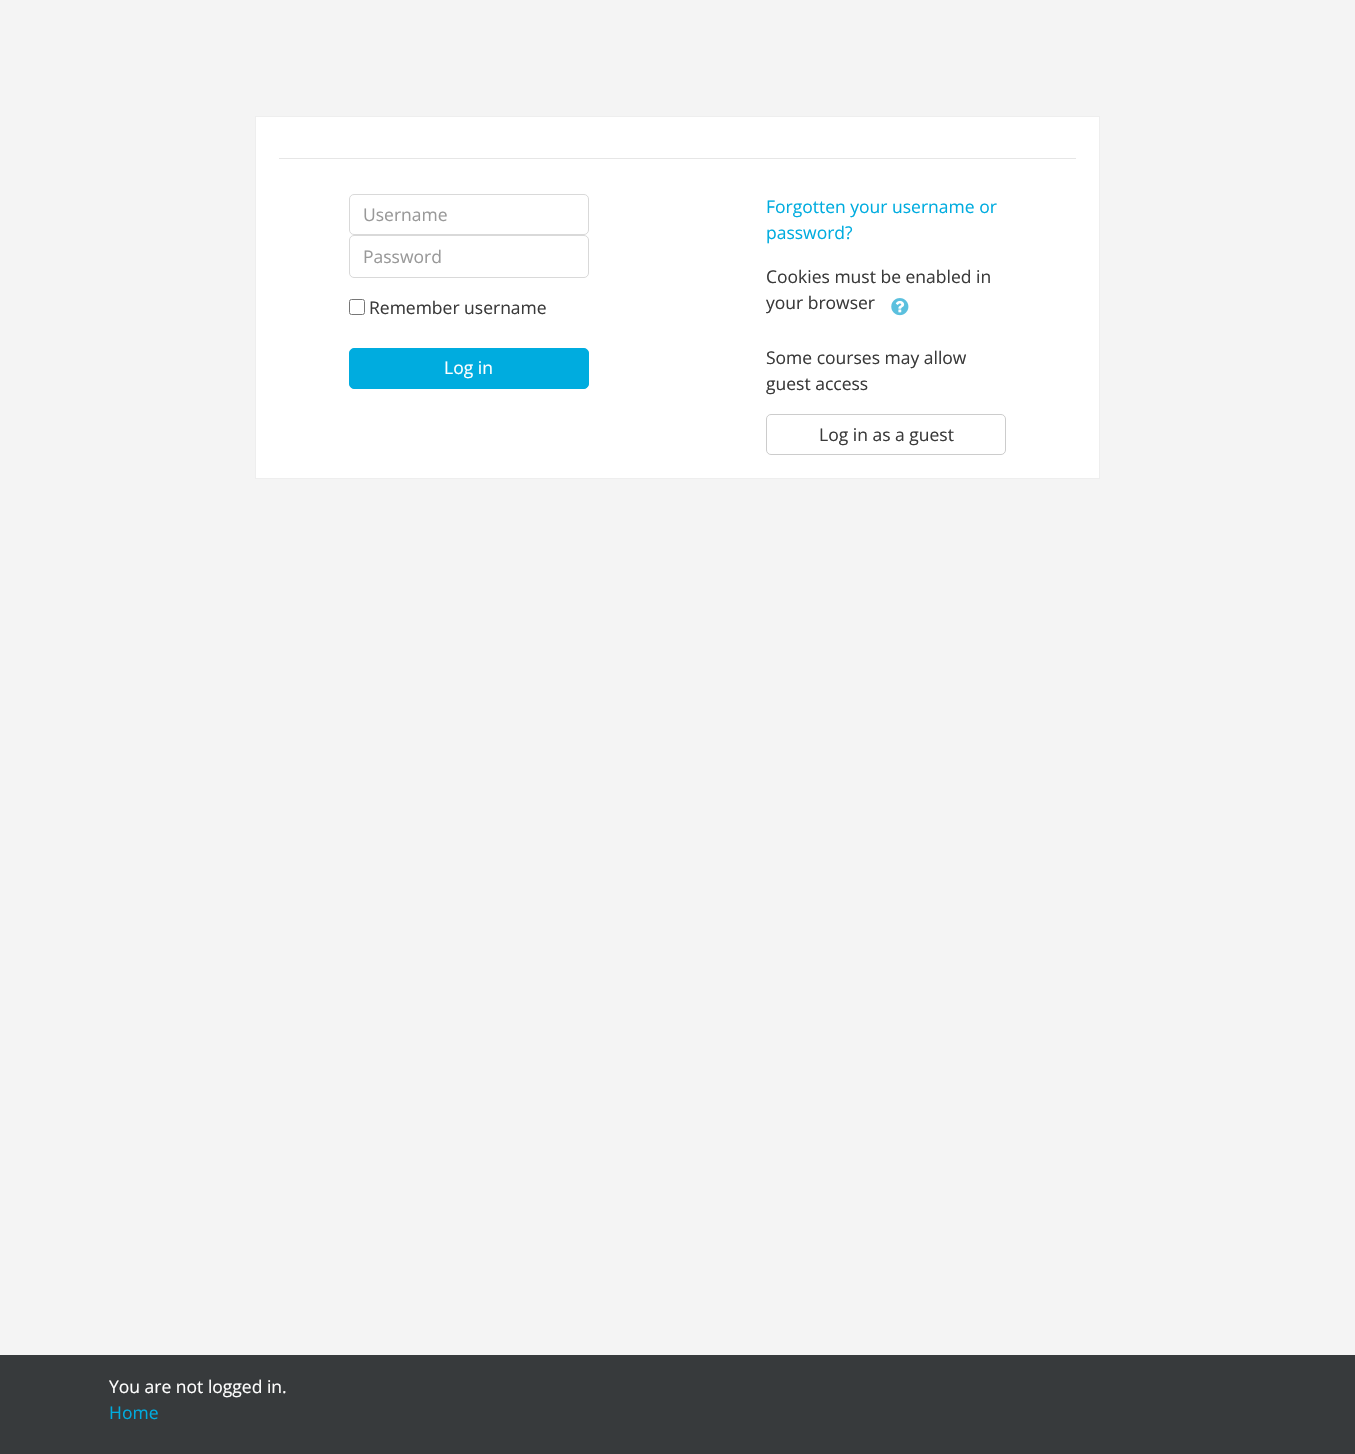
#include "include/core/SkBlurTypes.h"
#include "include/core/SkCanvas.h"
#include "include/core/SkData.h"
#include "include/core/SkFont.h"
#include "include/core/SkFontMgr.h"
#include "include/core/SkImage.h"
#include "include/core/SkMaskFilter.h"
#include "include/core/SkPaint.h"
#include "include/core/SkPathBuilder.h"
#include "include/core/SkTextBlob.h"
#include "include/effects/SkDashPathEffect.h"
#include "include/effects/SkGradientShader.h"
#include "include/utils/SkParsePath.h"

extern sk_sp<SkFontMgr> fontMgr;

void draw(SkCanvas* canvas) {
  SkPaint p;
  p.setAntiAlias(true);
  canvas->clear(SkColorSetRGB(244, 244, 244));
  p.setColor(SK_ColorWHITE);
  canvas->drawRect(SkRect::MakeLTRB(255.5f, 116.5f, 1099.5f, 478.5f), p);
  p.setStyle(SkPaint::kStroke_Style);
  p.setStrokeWidth(1);
  p.setColor(SkColorSetRGB(238, 238, 238));
  canvas->drawRect(SkRect::MakeLTRB(255.5f, 116.5f, 1099.5f, 478.5f), p);
  p.setStyle(SkPaint::kFill_Style);
  p.setColor(SkColorSetRGB(230, 230, 230));
  canvas->drawRect(SkRect::MakeLTRB(279, 158, 1076, 159), p);
  p.setStyle(SkPaint::kStroke_Style);
  p.setColor(SkColorSetRGB(217, 217, 217));
  canvas->drawRoundRect(SkRect::MakeLTRB(349.5f, 194.5f, 588.5f, 234.5f), 4.5f, 4.5f, p);
  canvas->drawRoundRect(SkRect::MakeLTRB(349.5f, 235.5f, 588.5f, 277.5f), 4.5f, 4.5f, p);
  p.setColor(SkColorSetRGB(118, 118, 118));
  canvas->drawRoundRect(SkRect::MakeLTRB(349.5f, 299.5f, 364.5f, 314.5f), 2, 2, p);
  p.setStyle(SkPaint::kFill_Style);
  p.setColor(SkColorSetRGB(0, 172, 223));
  canvas->drawRoundRect(SkRect::MakeLTRB(349.5f, 348.5f, 588.5f, 388.5f), 4.5f, 4.5f, p);
  p.setStyle(SkPaint::kStroke_Style);
  canvas->drawRoundRect(SkRect::MakeLTRB(349.5f, 348.5f, 588.5f, 388.5f), 4.5f, 4.5f, p);
  canvas->drawImageRect(SkImages::DeferredFromEncodedData(SkData::MakeFromFileName("images/1.png")), SkRect::MakeLTRB(891, 298, 909, 316), SkSamplingOptions());
  p.setColor(SkColorSetRGB(204, 204, 204));
  canvas->drawRoundRect(SkRect::MakeLTRB(766.5f, 414.5f, 1005.5f, 454.5f), 4.5f, 4.5f, p);
  p.setStyle(SkPaint::kFill_Style);
  p.setColor(SkColorSetRGB(55, 58, 60));
  canvas->drawRect(SkRect::MakeLTRB(0, 1355, 1355, 1454), p);
  SkFont font1(fontMgr->matchFamilyStyle("Open Sans", SkFontStyle::Normal()), 17.5f);
  font1.setSubpixel(true);
  p.setColor(SkColorSetRGB(153, 153, 153));
  canvas->drawString("Username", 363, 221, font1, p);
  canvas->drawString("Password", 363, 263, font1, p);
  p.setColor(SkColorSetRGB(58, 58, 58));
  canvas->drawString("Remember username", 369, 314, font1, p);
  p.setColor(SK_ColorWHITE);
  canvas->drawString("Log in", 444, 374, font1, p);
  p.setColor(SkColorSetRGB(0, 172, 223));
  canvas->drawString("Forgotten your username or", 766, 213, font1, p);
  canvas->drawString("password?", 766, 239, font1, p);
  p.setColor(SkColorSetRGB(58, 58, 58));
  canvas->drawString("Cookies must be enabled in", 766, 283, font1, p);
  canvas->drawString("your browser", 766, 309, font1, p);
  canvas->drawString("Some courses may allow", 766, 364, font1, p);
  canvas->drawString("guest access", 766, 390, font1, p);
  canvas->drawString("Log in as a guest", 819, 441, font1, p);
  p.setColor(SK_ColorWHITE);
  canvas->drawString("You are not logged in.", 109, 1393, font1, p);
  p.setColor(SkColorSetRGB(0, 172, 223));
  canvas->drawString("Home", 109, 1419, font1, p);
}
